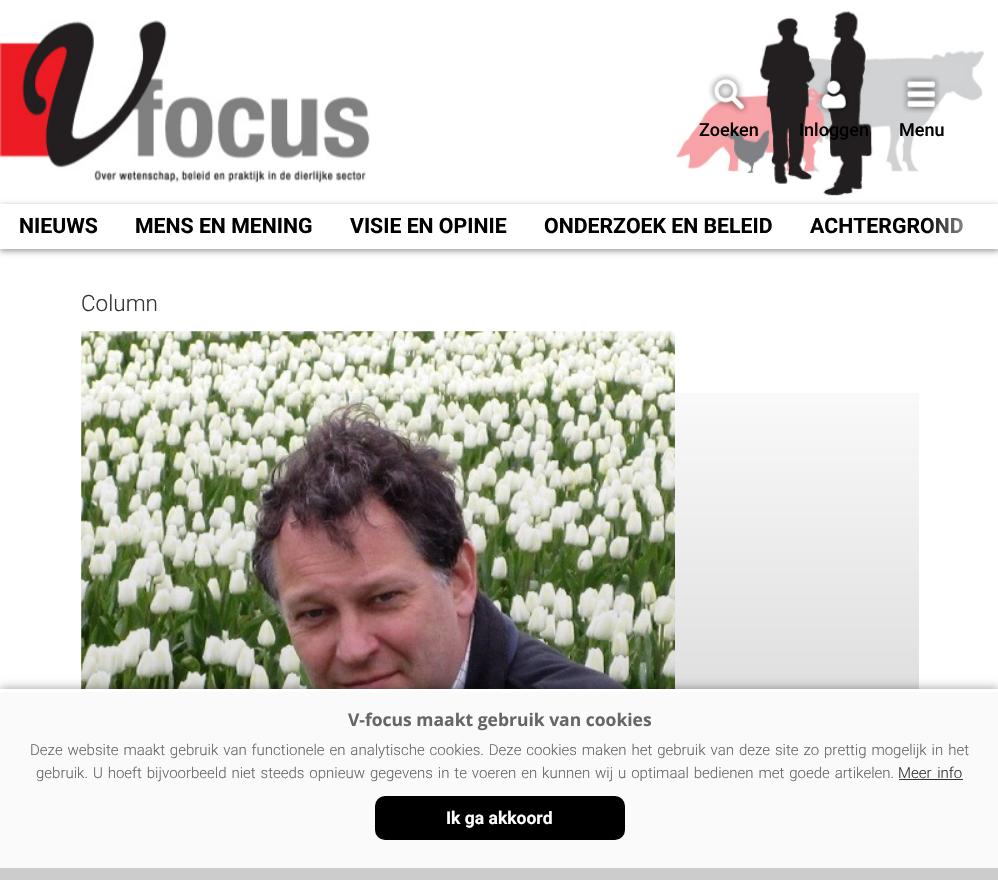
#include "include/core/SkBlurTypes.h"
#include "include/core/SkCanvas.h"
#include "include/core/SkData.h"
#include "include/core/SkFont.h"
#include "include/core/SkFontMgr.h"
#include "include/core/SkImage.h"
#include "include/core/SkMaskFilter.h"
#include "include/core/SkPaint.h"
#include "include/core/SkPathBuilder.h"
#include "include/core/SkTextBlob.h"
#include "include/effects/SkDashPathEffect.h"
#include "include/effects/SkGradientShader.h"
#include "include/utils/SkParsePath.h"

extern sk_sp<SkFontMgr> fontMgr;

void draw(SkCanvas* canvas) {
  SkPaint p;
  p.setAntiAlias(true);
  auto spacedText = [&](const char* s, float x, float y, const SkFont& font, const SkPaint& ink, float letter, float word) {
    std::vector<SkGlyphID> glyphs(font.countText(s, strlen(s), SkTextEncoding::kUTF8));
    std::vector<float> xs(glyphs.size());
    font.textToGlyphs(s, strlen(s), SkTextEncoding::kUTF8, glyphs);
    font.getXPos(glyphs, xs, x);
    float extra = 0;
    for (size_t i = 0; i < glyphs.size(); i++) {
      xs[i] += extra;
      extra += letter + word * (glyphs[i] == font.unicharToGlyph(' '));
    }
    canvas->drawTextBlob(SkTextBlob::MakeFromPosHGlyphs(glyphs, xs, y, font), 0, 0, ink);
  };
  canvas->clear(SK_ColorWHITE);
  canvas->drawImageRect(SkImages::DeferredFromEncodedData(SkData::MakeFromFileName("images/1.png")), SkRect::MakeLTRB(676, 10, 984, 196), SkSamplingOptions());
  canvas->drawImageRect(SkImages::DeferredFromEncodedData(SkData::MakeFromFileName("images/2.png")), SkRect::MakeLTRB(0, 20, 370, 183), SkSamplingOptions());
  canvas->drawImageRect(SkImages::DeferredFromEncodedData(SkData::MakeFromFileName("images/3.png")), SkRect::MakeLTRB(708, 73, 749, 114), SkSamplingOptions());
  canvas->drawImageRect(SkImages::DeferredFromEncodedData(SkData::MakeFromFileName("images/4.png")), SkRect::MakeLTRB(816, 75, 849, 115), SkSamplingOptions());
  canvas->drawImageRect(SkImages::DeferredFromEncodedData(SkData::MakeFromFileName("images/5.png")), SkRect::MakeLTRB(902, 75, 940, 113), SkSamplingOptions());
  p.setColor(SkColorSetARGB(102, 0, 0, 0));
  p.setMaskFilter(SkMaskFilter::MakeBlur(kNormal_SkBlurStyle, 3));
  canvas->drawRect(SkRect::MakeLTRB(0, 206, 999, 251), p);
  p.setMaskFilter(nullptr);
  p.setColor(SK_ColorWHITE);
  canvas->drawRect(SkRect::MakeLTRB(0, 204, 998, 249), p);
  canvas->drawImageRect(SkImages::DeferredFromEncodedData(SkData::MakeFromFileName("images/6.png")), SkRect::MakeLTRB(81, 331, 675, 689), SkSamplingOptions());
  {
    const SkColor colors[] = {SkColorSetARGB(0, 0, 0, 0), SkColorSetARGB(51, 0, 0, 0)};
    const float stops[] = {0, 1};
    const SkPoint ends[] = {{500, 331}, {500, 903}};
    p.setShader(SkGradientShader::MakeLinear(ends, colors, stops, 2, SkTileMode::kClamp));
    p.setAlpha(255);
  }
  canvas->drawRect(SkRect::MakeLTRB(81, 393, 919, 689), p);
  p.setShader(nullptr);
  p.setColor(SkColorSetARGB(102, 0, 0, 0));
  p.setMaskFilter(SkMaskFilter::MakeBlur(kNormal_SkBlurStyle, 5));
  canvas->drawRect(SkRect::MakeLTRB(0, 689, 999, 880), p);
  p.setMaskFilter(nullptr);
  p.setColor(SkColorSetRGB(250, 250, 250));
  canvas->drawRect(SkRect::MakeLTRB(0, 692, 998, 868), p);
  p.setColor(SK_ColorWHITE);
  canvas->drawRect(SkRect::MakeLTRB(0, 689, 998, 692), p);
  p.setColor(SkColorSetRGB(204, 204, 204));
  canvas->drawRect(SkRect::MakeLTRB(0, 868, 998, 880), p);
  p.setColor(SkColorSetRGB(51, 51, 51));
  canvas->drawRect(SkRect::MakeLTRB(899, 779, 963, 780), p);
  p.setColor(SK_ColorBLACK);
  canvas->drawRoundRect(SkRect::MakeLTRB(375, 796, 625, 840), 10, 10, p);
  SkFont font1(fontMgr->matchFamilyStyle("Roboto", SkFontStyle(500, SkFontStyle::kNormal_Width, SkFontStyle::kUpright_Slant)), 18);
  font1.setSubpixel(true);
  canvas->drawString("Zoeken", 699, 136, font1, p);
  canvas->drawString("Inloggen", 799, 136, font1, p);
  canvas->drawString("Menu", 899, 136, font1, p);
  SkFont font2(fontMgr->matchFamilyStyle("Roboto", SkFontStyle::Bold()), 21.25f);
  font2.setSubpixel(true);
  canvas->drawString("NIEUWS", 19, 233, font2, p);
  canvas->drawString("MENS EN MENING", 135, 233, font2, p);
  canvas->drawString("VISIE EN OPINIE", 350, 233, font2, p);
  canvas->drawString("ONDERZOEK EN BELEID", 544, 233, font2, p);
  canvas->drawString("ACHTERGROND", 810, 233, font2, p);
  {
    const SkColor colors[] = {SkColorSetARGB(0, 255, 255, 255), SK_ColorWHITE};
    const float stops[] = {0, 1};
    const SkPoint ends[] = {{924, 224}, {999, 224}};
    p.setShader(SkGradientShader::MakeLinear(ends, colors, stops, 2, SkTileMode::kClamp));
    p.setAlpha(255);
  }
  canvas->drawRect(SkRect::MakeLTRB(926, 217, 963, 233), p);
  SkFont font3(fontMgr->matchFamilyStyle("Roboto", SkFontStyle(300, SkFontStyle::kNormal_Width, SkFontStyle::kUpright_Slant)), 22.5f);
  font3.setSubpixel(true);
  p.setShader(nullptr);
  p.setColor(SkColorSetRGB(51, 51, 51));
  canvas->drawString("Column", 81, 311, font3, p);
  SkFont font4(fontMgr->matchFamilyStyle("Open Sans", SkFontStyle::Bold()), 17.5f);
  font4.setSubpixel(true);
  p.setColor(SkColorSetRGB(102, 102, 102));
  canvas->drawString("V-focus maakt gebruik van cookies", 348, 726, font4, p);
  SkFont font5(fontMgr->matchFamilyStyle("Roboto", SkFontStyle(300, SkFontStyle::kNormal_Width, SkFontStyle::kUpright_Slant)), 15);
  font5.setSubpixel(true);
  spacedText("Deze website maakt gebruik van functionele en analytische cookies. Deze cookies maken het gebruik van deze site zo prettig mogelijk in het", 30, 755, font5, p, 0, 1.25f);
  spacedText("gebruik. U hoeft bijvoorbeeld niet steeds opnieuw gegevens in te voeren en kunnen wij u optimaal bedienen met goede artikelen.", 36, 778, font5, p, 0, 1.25f);
  p.setColor(SkColorSetRGB(51, 51, 51));
  spacedText("Meer info", 898, 778, font5, p, 0, 2);
  SkFont font6(fontMgr->matchFamilyStyle("Roboto", SkFontStyle::Bold()), 17.5f);
  font6.setSubpixel(true);
  p.setColor(SK_ColorWHITE);
  canvas->drawString("Ik ga akkoord", 446, 824, font6, p);
}
